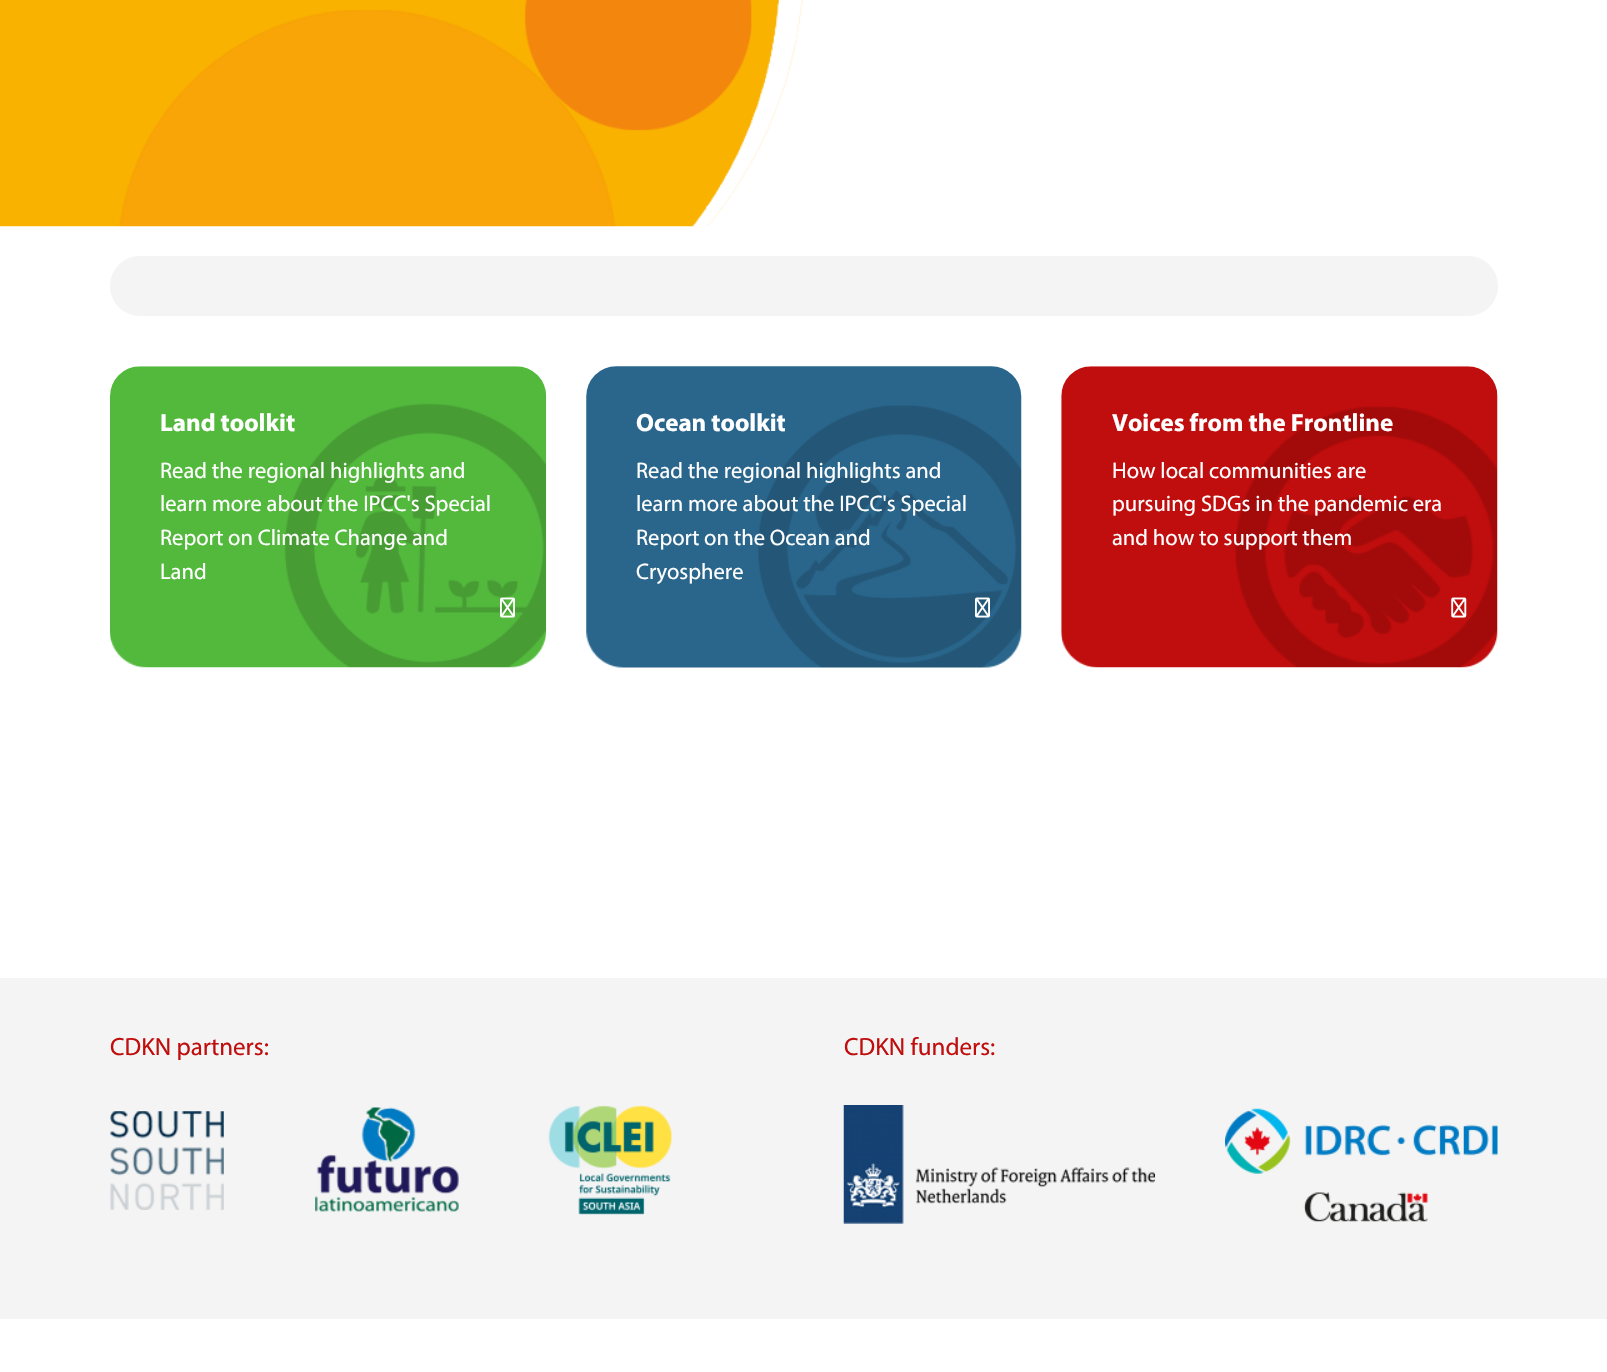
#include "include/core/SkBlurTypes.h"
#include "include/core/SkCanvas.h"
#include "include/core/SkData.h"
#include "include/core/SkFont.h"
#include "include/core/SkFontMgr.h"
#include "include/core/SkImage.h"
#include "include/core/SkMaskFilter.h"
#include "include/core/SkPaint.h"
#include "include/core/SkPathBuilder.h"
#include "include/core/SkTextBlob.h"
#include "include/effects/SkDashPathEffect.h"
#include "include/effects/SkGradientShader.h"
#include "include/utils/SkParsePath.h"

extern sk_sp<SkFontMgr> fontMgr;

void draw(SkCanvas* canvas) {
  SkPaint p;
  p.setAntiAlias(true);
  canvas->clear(SK_ColorWHITE);
  canvas->drawImageRect(SkImages::DeferredFromEncodedData(SkData::MakeFromFileName("images/1.png")), SkRect::MakeLTRB(0, 0, 803, 227), SkSamplingOptions());
  p.setColor(SkColorSetRGB(244, 244, 244));
  canvas->drawRoundRect(SkRect::MakeLTRB(110, 256, 1498, 316), 30, 30, p);
  canvas->drawImageRect(SkImages::DeferredFromEncodedData(SkData::MakeFromFileName("images/2.png")), SkRect::MakeLTRB(110, 366, 547, 668), SkSamplingOptions());
  canvas->drawImageRect(SkImages::DeferredFromEncodedData(SkData::MakeFromFileName("images/3.png")), SkRect::MakeLTRB(500, 597, 515, 618), SkSamplingOptions());
  canvas->drawImageRect(SkImages::DeferredFromEncodedData(SkData::MakeFromFileName("images/4.png")), SkRect::MakeLTRB(586, 366, 1022, 668), SkSamplingOptions());
  canvas->drawImageRect(SkImages::DeferredFromEncodedData(SkData::MakeFromFileName("images/5.png")), SkRect::MakeLTRB(975, 597, 990, 618), SkSamplingOptions());
  canvas->drawImageRect(SkImages::DeferredFromEncodedData(SkData::MakeFromFileName("images/6.png")), SkRect::MakeLTRB(1061, 366, 1498, 668), SkSamplingOptions());
  canvas->drawImageRect(SkImages::DeferredFromEncodedData(SkData::MakeFromFileName("images/7.png")), SkRect::MakeLTRB(1451, 597, 1467, 618), SkSamplingOptions());
  canvas->drawRect(SkRect::MakeLTRB(0, 978, 1607, 1319), p);
  canvas->drawImageRect(SkImages::DeferredFromEncodedData(SkData::MakeFromFileName("images/8.png")), SkRect::MakeLTRB(110, 1111, 224, 1210), SkSamplingOptions());
  canvas->drawImageRect(SkImages::DeferredFromEncodedData(SkData::MakeFromFileName("images/9.png")), SkRect::MakeLTRB(315, 1107, 459, 1212), SkSamplingOptions());
  canvas->drawImageRect(SkImages::DeferredFromEncodedData(SkData::MakeFromFileName("images/10.png")), SkRect::MakeLTRB(548, 1105, 673, 1215), SkSamplingOptions());
  canvas->drawImageRect(SkImages::DeferredFromEncodedData(SkData::MakeFromFileName("images/11.png")), SkRect::MakeLTRB(843, 1105, 1155, 1224), SkSamplingOptions());
  canvas->drawImageRect(SkImages::DeferredFromEncodedData(SkData::MakeFromFileName("images/12.png")), SkRect::MakeLTRB(1225, 1108, 1498, 1222), SkSamplingOptions());
  SkFont font1(fontMgr->matchFamilyStyle("Myriad", SkFontStyle::Bold()), 25);
  font1.setSubpixel(true);
  p.setColor(SK_ColorWHITE);
  canvas->drawString("Land toolkit", 160, 431, font1, p);
  SkFont font2(fontMgr->matchFamilyStyle("Myriad", SkFontStyle::Normal()), 22.5f);
  font2.setSubpixel(true);
  canvas->drawString("Read the regional highlights and", 160, 478, font2, p);
  canvas->drawString("learn more about the IPCC's Special", 160, 511, font2, p);
  canvas->drawString("Report on Climate Change and", 160, 545, font2, p);
  canvas->drawString("Land", 160, 579, font2, p);
  canvas->drawString("Ocean toolkit", 636, 431, font1, p);
  canvas->drawString("Read the regional highlights and", 636, 478, font2, p);
  canvas->drawString("learn more about the IPCC's Special", 636, 511, font2, p);
  canvas->drawString("Report on the Ocean and", 636, 545, font2, p);
  canvas->drawString("Cryosphere", 636, 579, font2, p);
  canvas->drawString("Voices from the Frontline", 1112, 431, font1, p);
  canvas->drawString("How local communities are", 1112, 478, font2, p);
  canvas->drawString("pursuing SDGs in the pandemic era", 1112, 511, font2, p);
  canvas->drawString("and how to support them", 1112, 545, font2, p);
  SkFont font3(fontMgr->matchFamilyStyle("Myriad", SkFontStyle::Normal()), 25);
  font3.setSubpixel(true);
  p.setColor(SkColorSetRGB(192, 13, 13));
  canvas->drawString("CDKN partners:", 110, 1055, font3, p);
  canvas->drawString("CDKN funders:", 844, 1055, font3, p);
}
